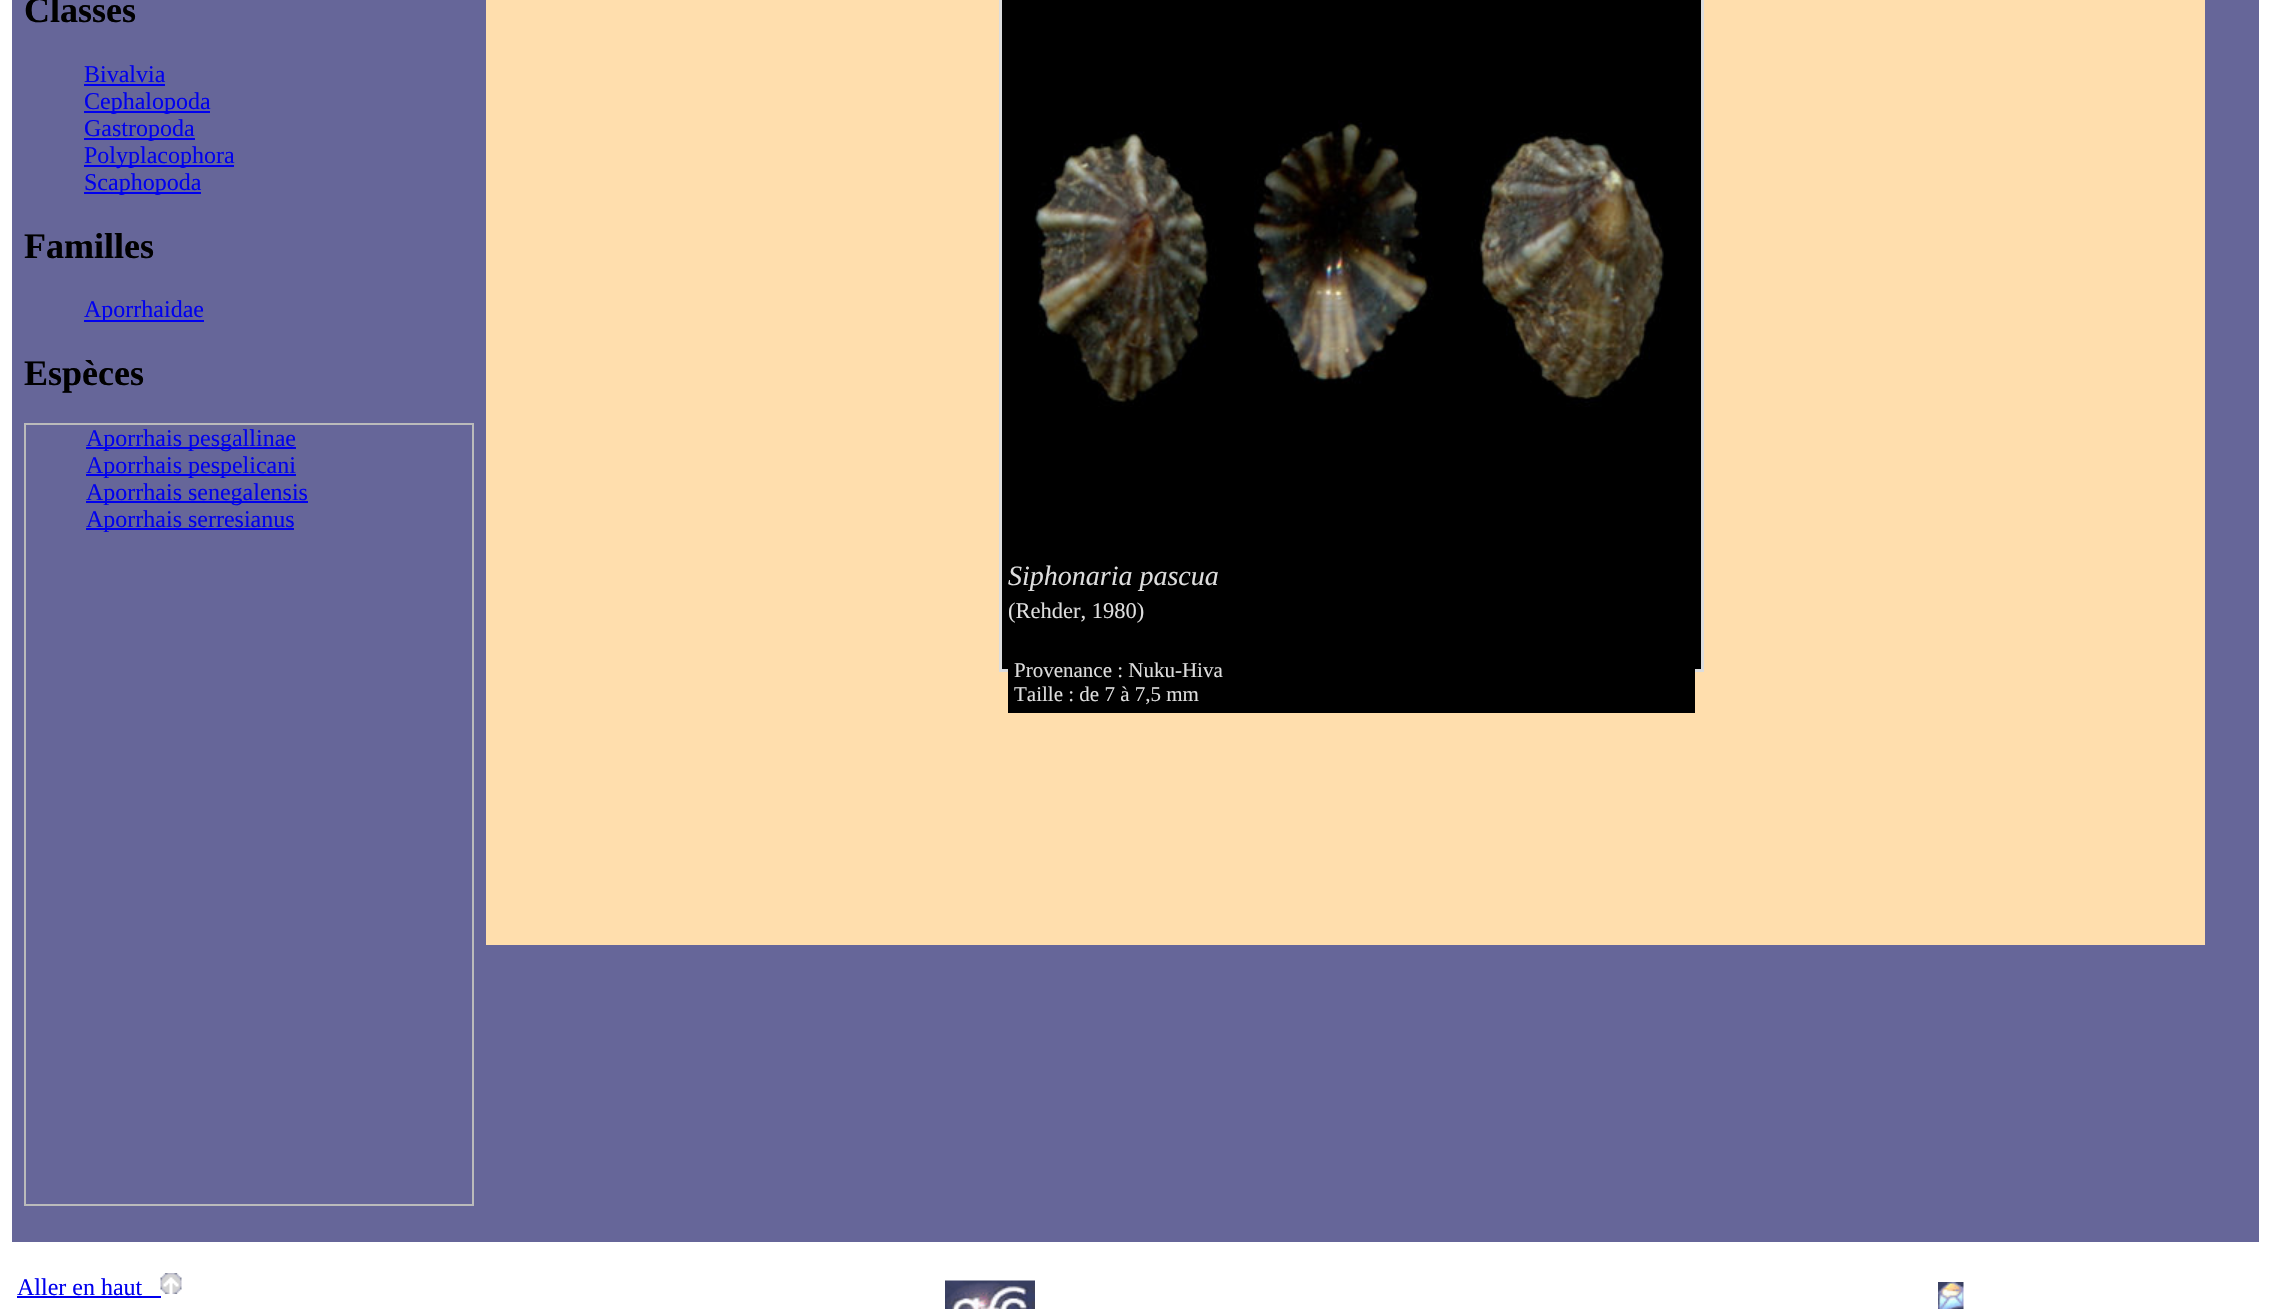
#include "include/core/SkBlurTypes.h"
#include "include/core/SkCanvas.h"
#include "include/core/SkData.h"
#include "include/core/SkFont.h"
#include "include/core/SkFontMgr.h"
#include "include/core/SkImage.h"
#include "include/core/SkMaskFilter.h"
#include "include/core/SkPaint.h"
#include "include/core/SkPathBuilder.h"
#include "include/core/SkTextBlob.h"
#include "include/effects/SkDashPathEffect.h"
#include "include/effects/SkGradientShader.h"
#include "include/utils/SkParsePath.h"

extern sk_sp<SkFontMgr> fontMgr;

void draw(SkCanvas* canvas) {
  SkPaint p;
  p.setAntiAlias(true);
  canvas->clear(SK_ColorWHITE);
  p.setColor(SkColorSetRGB(102, 102, 153));
  canvas->drawRect(SkRect::MakeLTRB(12, 0, 2259, 1242), p);
  p.setColor(SkColorSetRGB(0, 0, 238));
  canvas->drawRect(SkRect::MakeLTRB(84, 84, 165, 86), p);
  canvas->drawRect(SkRect::MakeLTRB(84, 111, 210, 113), p);
  canvas->drawRect(SkRect::MakeLTRB(84, 138, 195, 140), p);
  canvas->drawRect(SkRect::MakeLTRB(84, 165, 234, 167), p);
  canvas->drawRect(SkRect::MakeLTRB(84, 192, 201, 194), p);
  canvas->drawRect(SkRect::MakeLTRB(84, 320, 204, 322), p);
  p.setStyle(SkPaint::kStroke_Style);
  p.setStrokeWidth(2);
  p.setColor(SkColorSetRGB(187, 187, 187));
  canvas->drawRect(SkRect::MakeLTRB(25, 424, 473, 1205), p);
  p.setStyle(SkPaint::kFill_Style);
  p.setColor(SkColorSetRGB(0, 0, 238));
  canvas->drawRect(SkRect::MakeLTRB(86, 447, 296, 449), p);
  canvas->drawRect(SkRect::MakeLTRB(86, 474, 296, 476), p);
  canvas->drawRect(SkRect::MakeLTRB(86, 501, 308, 503), p);
  canvas->drawRect(SkRect::MakeLTRB(86, 528, 294, 530), p);
  p.setColor(SkColorSetRGB(255, 222, 173));
  canvas->drawRect(SkRect::MakeLTRB(486, 0, 2205, 945), p);
  p.setColor(SK_ColorBLACK);
  canvas->drawRect(SkRect::MakeLTRB(1000.5f, -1.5f, 1702.5f, 670.5f), p);
  p.setStyle(SkPaint::kStroke_Style);
  p.setStrokeWidth(3);
  p.setColor(SkColorSetRGB(221, 221, 221));
  canvas->drawRect(SkRect::MakeLTRB(1000.5f, -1.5f, 1702.5f, 670.5f), p);
  canvas->drawImageRect(SkImages::DeferredFromEncodedData(SkData::MakeFromFileName("images/1.png")), SkRect::MakeLTRB(1034, 120, 1664, 407), SkSamplingOptions());
  p.setStyle(SkPaint::kFill_Style);
  p.setColor(SK_ColorBLACK);
  canvas->drawRect(SkRect::MakeLTRB(1008, 669, 1695, 713), p);
  p.setColor(SkColorSetRGB(0, 0, 238));
  canvas->drawRect(SkRect::MakeLTRB(17, 1296, 161, 1298), p);
  canvas->drawImageRect(SkImages::DeferredFromEncodedData(SkData::MakeFromFileName("images/2.png")), SkRect::MakeLTRB(160, 1273, 182, 1294), SkSamplingOptions());
  canvas->drawImageRect(SkImages::DeferredFromEncodedData(SkData::MakeFromFileName("images/3.png")), SkRect::MakeLTRB(945, 1280, 1035, 1309), SkSamplingOptions());
  canvas->drawImageRect(SkImages::DeferredFromEncodedData(SkData::MakeFromFileName("images/4.png")), SkRect::MakeLTRB(1938, 1282, 1964, 1309), SkSamplingOptions());
  SkFont font1(fontMgr->matchFamilyStyle("Liberation Serif", SkFontStyle::Bold()), 36);
  font1.setSubpixel(true);
  p.setColor(SK_ColorBLACK);
  canvas->drawString("Classes", 24, 22, font1, p);
  SkFont font2(fontMgr->matchFamilyStyle("Liberation Serif", SkFontStyle::Normal()), 24);
  font2.setSubpixel(true);
  p.setColor(SkColorSetRGB(0, 0, 238));
  canvas->drawString("Bivalvia", 84, 82, font2, p);
  canvas->drawString("Cephalopoda", 84, 109, font2, p);
  canvas->drawString("Gastropoda", 84, 136, font2, p);
  canvas->drawString("Polyplacophora", 84, 163, font2, p);
  canvas->drawString("Scaphopoda", 84, 190, font2, p);
  p.setColor(SK_ColorBLACK);
  canvas->drawString("Familles", 24, 258, font1, p);
  p.setColor(SkColorSetRGB(0, 0, 238));
  canvas->drawString("Aporrhaidae", 84, 317, font2, p);
  p.setColor(SK_ColorBLACK);
  canvas->drawString("Espèces", 24, 385, font1, p);
  p.setColor(SkColorSetRGB(0, 0, 238));
  canvas->drawString("Aporrhais pesgallinae", 86, 446, font2, p);
  canvas->drawString("Aporrhais pespelicani", 86, 473, font2, p);
  canvas->drawString("Aporrhais senegalensis", 86, 500, font2, p);
  canvas->drawString("Aporrhais serresianus", 86, 527, font2, p);
  SkFont font3(fontMgr->matchFamilyStyle("Liberation Serif", SkFontStyle::Italic()), 28);
  font3.setSubpixel(true);
  p.setColor(SkColorSetRGB(221, 221, 221));
  canvas->drawString("Siphonaria pascua", 1008, 585, font3, p);
  SkFont font4(fontMgr->matchFamilyStyle("Liberation Serif", SkFontStyle::Normal()), 22.5f);
  font4.setSubpixel(true);
  canvas->drawString("(Rehder, 1980)", 1008, 618, font4, p);
  SkFont font5(fontMgr->matchFamilyStyle("Liberation Serif", SkFontStyle::Normal()), 21);
  font5.setSubpixel(true);
  canvas->drawString("Provenance : Nuku-Hiva", 1014, 677, font5, p);
  canvas->drawString("Taille : de 7 à 7,5 mm", 1014, 701, font5, p);
  p.setColor(SkColorSetRGB(0, 0, 238));
  canvas->drawString("Aller en haut", 17, 1295, font2, p);
}
